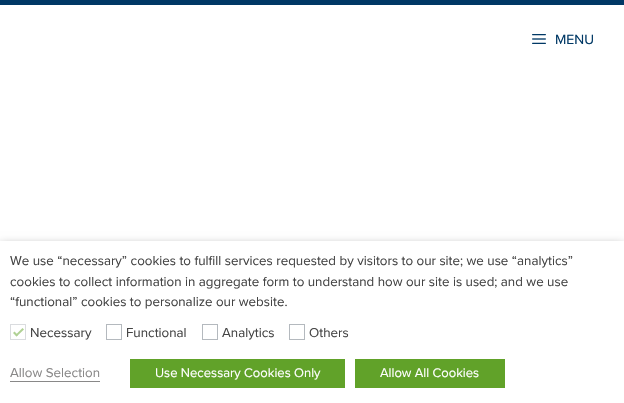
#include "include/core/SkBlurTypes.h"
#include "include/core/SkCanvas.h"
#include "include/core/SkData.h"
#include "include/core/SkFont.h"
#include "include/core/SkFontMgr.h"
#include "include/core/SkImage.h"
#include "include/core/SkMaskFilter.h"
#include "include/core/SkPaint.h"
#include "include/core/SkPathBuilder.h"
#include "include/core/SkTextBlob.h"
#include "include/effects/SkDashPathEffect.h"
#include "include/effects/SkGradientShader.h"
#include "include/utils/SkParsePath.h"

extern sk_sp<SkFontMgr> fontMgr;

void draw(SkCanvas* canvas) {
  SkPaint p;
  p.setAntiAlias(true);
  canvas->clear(SK_ColorWHITE);
  p.setColor(SkColorSetRGB(0, 56, 101));
  canvas->drawRect(SkRect::MakeLTRB(0, 0, 624, 5), p);
  canvas->drawImageRect(SkImages::DeferredFromEncodedData(SkData::MakeFromFileName("images/1.png")), SkRect::MakeLTRB(532, 34, 546, 44), SkSamplingOptions());
  p.setColor(SkColorSetARGB(128, 0, 0, 0));
  p.setMaskFilter(SkMaskFilter::MakeBlur(kNormal_SkBlurStyle, 5));
  canvas->drawRect(SkRect::MakeLTRB(0, 246, 624, 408), p);
  p.setMaskFilter(nullptr);
  p.setColor(SK_ColorWHITE);
  canvas->drawRect(SkRect::MakeLTRB(0, 241, 624, 403), p);
  p.setStyle(SkPaint::kStroke_Style);
  p.setStrokeWidth(1);
  p.setColor(SkColorSetRGB(218, 220, 223));
  canvas->drawRect(SkRect::MakeLTRB(10.5f, 324.5f, 25.5f, 339.5f), p);
  p.setStyle(SkPaint::kFill_Style);
  p.setColor(SkColorSetRGB(176, 209, 148));
  canvas->drawPath(SkPathBuilder().moveTo(22.5f, 328).lineTo(24, 329.5f).lineTo(16.5f, 336.5f).lineTo(15.5f, 335).close().detach(), p);
  canvas->drawPath(SkPathBuilder().moveTo(14.5f, 331.5f).lineTo(18, 335).lineTo(16.5f, 336.5f).lineTo(13, 333).close().detach(), p);
  p.setStyle(SkPaint::kStroke_Style);
  p.setColor(SkColorSetRGB(180, 185, 190));
  canvas->drawRect(SkRect::MakeLTRB(106.5f, 324.5f, 121.5f, 339.5f), p);
  canvas->drawRect(SkRect::MakeLTRB(202.5f, 324.5f, 217.5f, 339.5f), p);
  canvas->drawRect(SkRect::MakeLTRB(289.5f, 324.5f, 304.5f, 339.5f), p);
  p.setStyle(SkPaint::kFill_Style);
  p.setColor(SkColorSetRGB(137, 136, 136));
  canvas->drawRect(SkRect::MakeLTRB(10, 381, 100, 382), p);
  p.setColor(SkColorSetRGB(97, 162, 41));
  canvas->drawRect(SkRect::MakeLTRB(130, 359, 345, 388), p);
  canvas->drawRect(SkRect::MakeLTRB(355, 359, 505, 388), p);
  SkFont font1(fontMgr->matchFamilyStyle("Proxima Nova", SkFontStyle::Normal()), 14);
  font1.setSubpixel(true);
  p.setColor(SkColorSetRGB(0, 56, 101));
  canvas->drawString("MENU", 555, 44, font1, p);
  SkFont font2(fontMgr->matchFamilyStyle("Proxima Nova", SkFontStyle::Normal()), 13.35f);
  font2.setSubpixel(true);
  p.setColor(SkColorSetRGB(68, 68, 68));
  canvas->drawString("We use “necessary” cookies to fulfill services requested by visitors to our site; we use “analytics”", 10, 265, font2, p);
  canvas->drawString("cookies to collect information in aggregate form to understand how our site is used; and we use", 10, 286, font2, p);
  canvas->drawString("“functional” cookies to personalize our website.", 10, 306, font2, p);
  canvas->drawString("Necessary", 30, 337, font2, p);
  canvas->drawString("Functional", 126, 337, font2, p);
  canvas->drawString("Analytics", 222, 337, font2, p);
  canvas->drawString("Others", 309, 337, font2, p);
  p.setColor(SkColorSetRGB(137, 136, 136));
  canvas->drawString("Allow Selection", 10, 377, font2, p);
  SkFont font3(fontMgr->matchFamilyStyle("Proxima Nova", SkFontStyle::Normal()), 13);
  font3.setSubpixel(true);
  p.setColor(SK_ColorWHITE);
  canvas->drawString("Use Necessary Cookies Only", 155, 377, font3, p);
  canvas->drawString("Allow All Cookies", 380, 377, font3, p);
}
